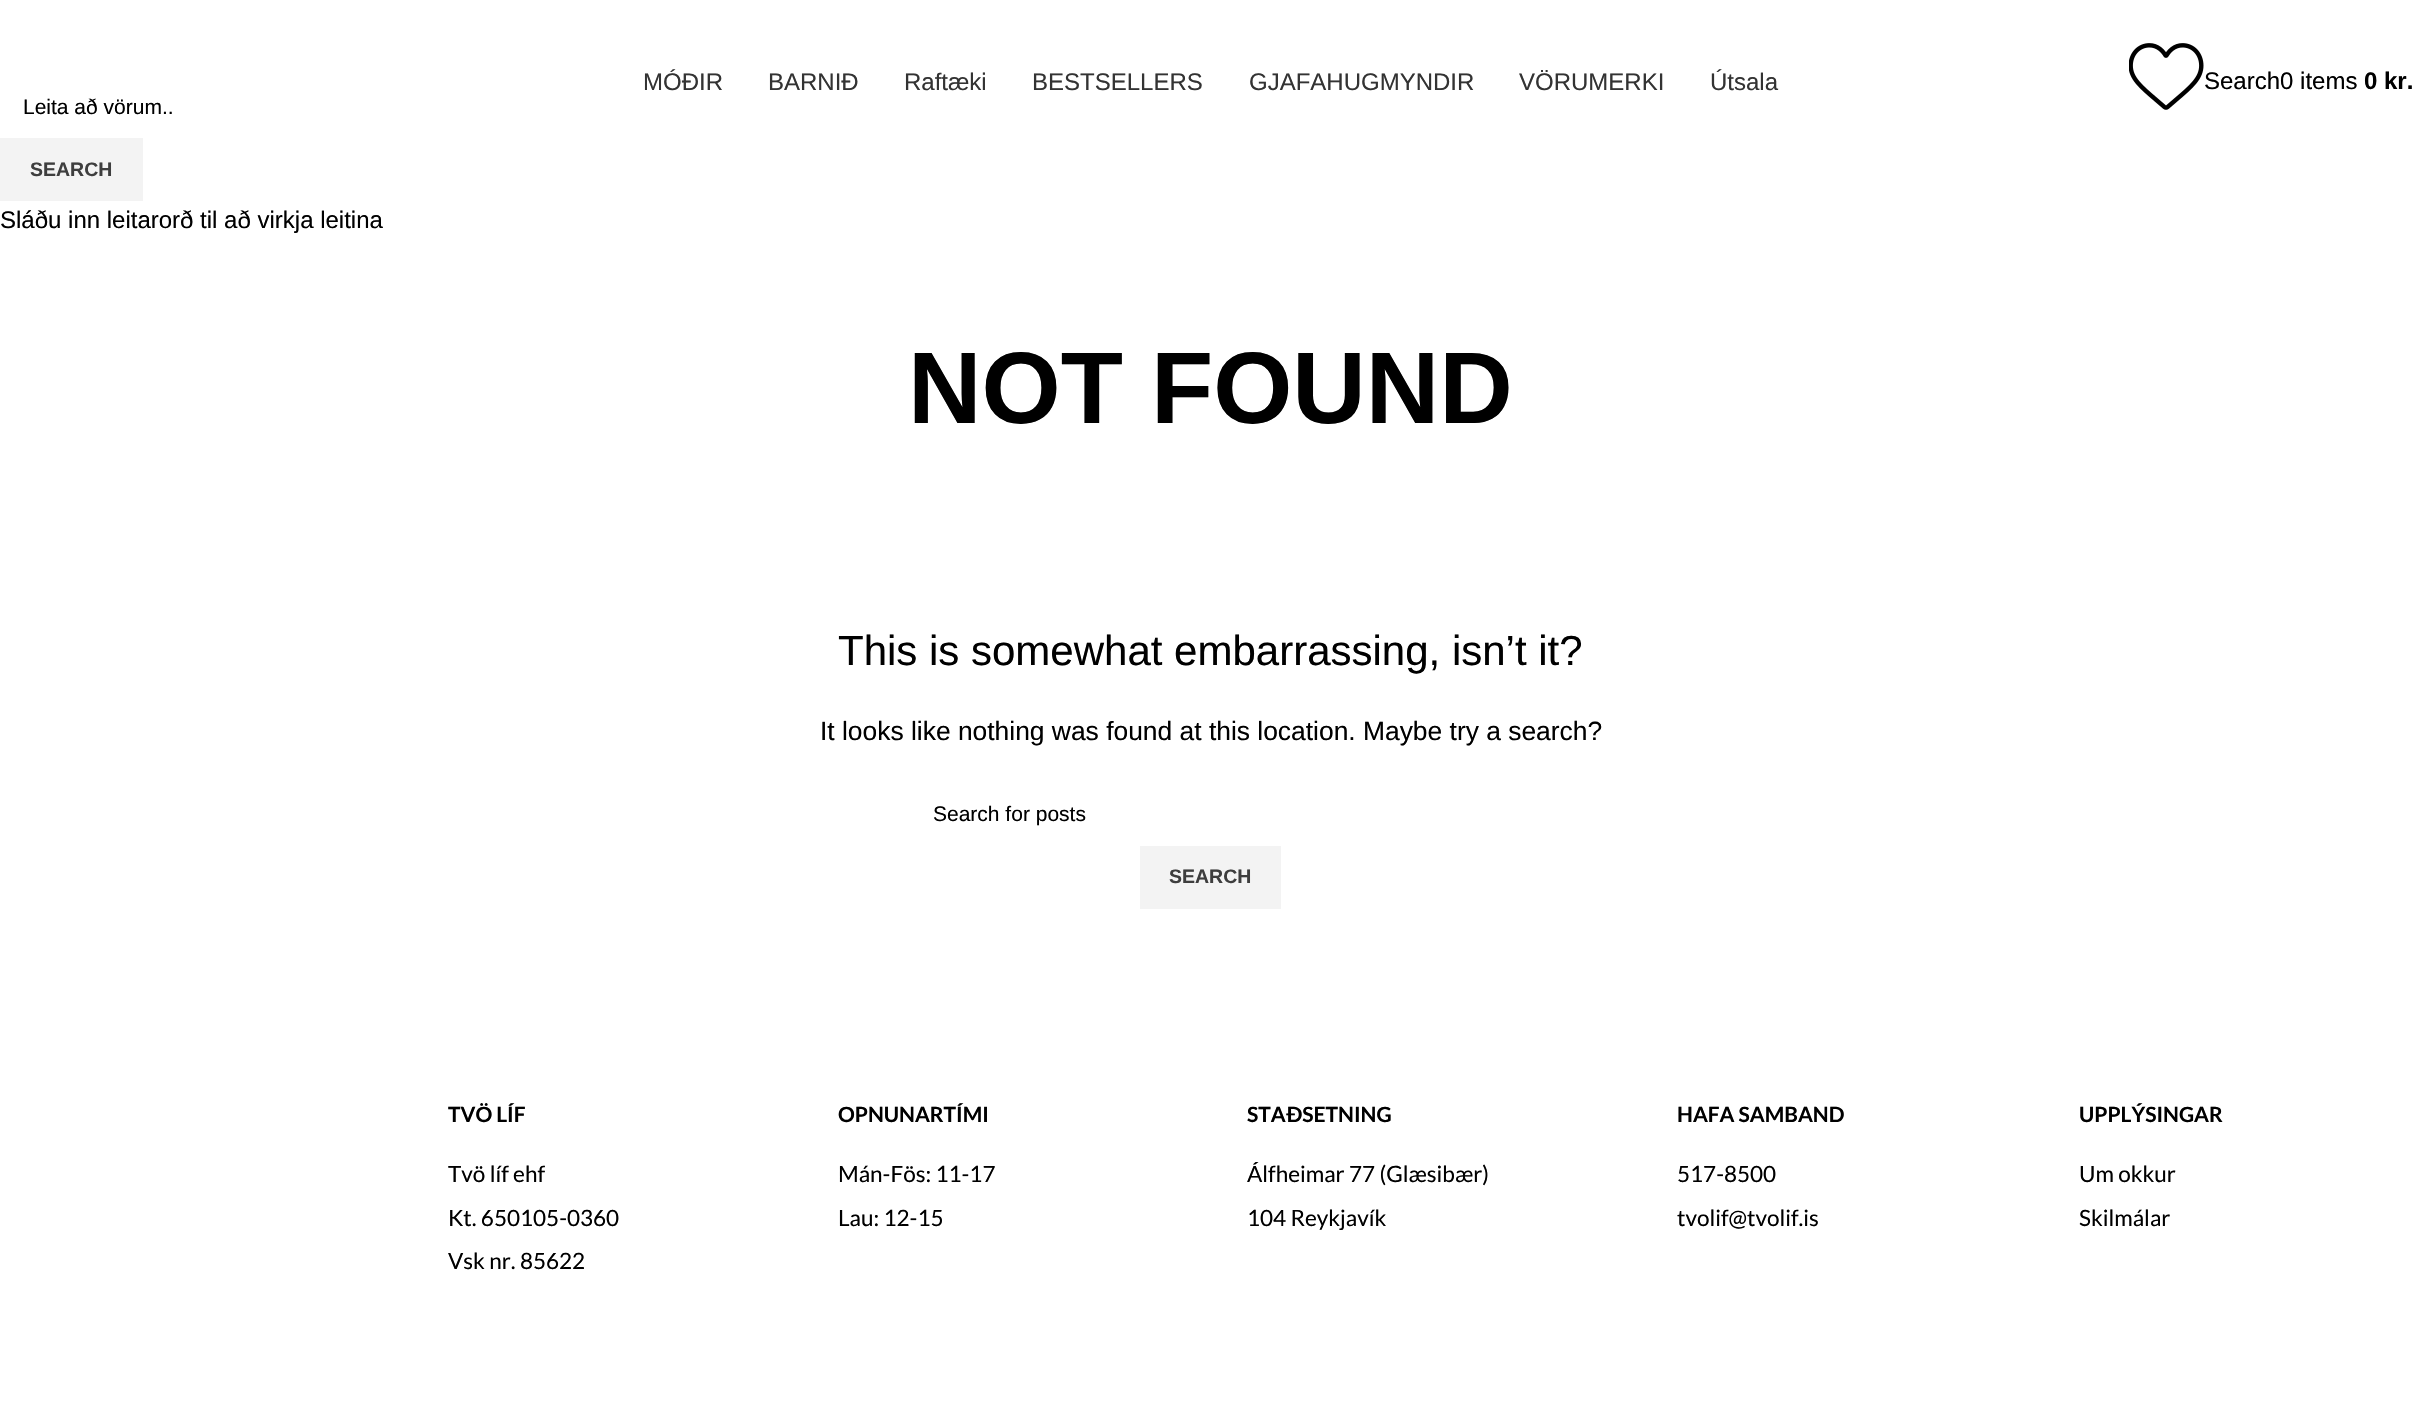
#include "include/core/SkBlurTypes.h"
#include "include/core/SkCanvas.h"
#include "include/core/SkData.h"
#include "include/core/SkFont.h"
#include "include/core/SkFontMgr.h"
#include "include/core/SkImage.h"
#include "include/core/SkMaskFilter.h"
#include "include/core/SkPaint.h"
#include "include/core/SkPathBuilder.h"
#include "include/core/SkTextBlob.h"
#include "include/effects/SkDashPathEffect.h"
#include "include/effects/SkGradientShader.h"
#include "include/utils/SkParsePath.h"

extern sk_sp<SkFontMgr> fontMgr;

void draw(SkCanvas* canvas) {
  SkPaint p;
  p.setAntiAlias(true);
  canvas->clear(SK_ColorWHITE);
  p.setColor(SkColorSetRGB(243, 243, 243));
  canvas->drawRect(SkRect::MakeLTRB(0, 138, 143, 201), p);
  canvas->drawImageRect(SkImages::DeferredFromEncodedData(SkData::MakeFromFileName("images/1.png")), SkRect::MakeLTRB(2129, 43, 2204, 110), SkSamplingOptions());
  canvas->drawRect(SkRect::MakeLTRB(1140, 846, 1281, 909), p);
  SkFont font1(fontMgr->matchFamilyStyle("Liberation Sans", SkFontStyle::Normal()), 21);
  font1.setSubpixel(true);
  p.setColor(SK_ColorBLACK);
  canvas->drawString("Leita að vörum..", 23, 114, font1, p);
  SkFont font2(fontMgr->matchFamilyStyle("Liberation Sans", SkFontStyle::Bold()), 19.5f);
  font2.setSubpixel(true);
  p.setColor(SkColorSetRGB(62, 62, 62));
  canvas->drawString("SEARCH", 30, 176, font2, p);
  SkFont font3(fontMgr->matchFamilyStyle("Liberation Sans", SkFontStyle::Normal()), 24);
  font3.setSubpixel(true);
  p.setColor(SK_ColorBLACK);
  canvas->drawString("Sláðu inn leitarorð til að virkja leitina", 0, 228, font3, p);
  p.setColor(SkColorSetRGB(51, 51, 51));
  canvas->drawString("MÓÐIR", 643, 90, font3, p);
  canvas->drawString("BARNIÐ", 768, 90, font3, p);
  canvas->drawString("Raftæki", 904, 90, font3, p);
  canvas->drawString("BESTSELLERS", 1032, 90, font3, p);
  canvas->drawString("GJAFAHUGMYNDIR", 1249, 90, font3, p);
  canvas->drawString("VÖRUMERKI", 1519, 90, font3, p);
  canvas->drawString("Útsala", 1710, 90, font3, p);
  p.setColor(SK_ColorBLACK);
  canvas->drawString("Search0 items", 2204, 89, font3, p);
  SkFont font4(fontMgr->matchFamilyStyle("Liberation Sans", SkFontStyle::Bold()), 24);
  font4.setSubpixel(true);
  canvas->drawString("0 kr.", 2364, 89, font4, p);
  SkFont font5(fontMgr->matchFamilyStyle("Liberation Sans", SkFontStyle::Bold()), 101.75f);
  font5.setSubpixel(true);
  canvas->drawString("NOT FOUND", 908, 423, font5, p);
  SkFont font6(fontMgr->matchFamilyStyle("Liberation Sans", SkFontStyle::Normal()), 42);
  font6.setSubpixel(true);
  canvas->drawString("This is somewhat embarrassing, isn’t it?", 838, 665, font6, p);
  SkFont font7(fontMgr->matchFamilyStyle("Liberation Sans", SkFontStyle::Normal()), 26.4f);
  font7.setSubpixel(true);
  canvas->drawString("It looks like nothing was found at this location. Maybe try a search?", 820, 740, font7, p);
  canvas->drawString("Search for posts", 933, 821, font1, p);
  p.setColor(SkColorSetRGB(62, 62, 62));
  canvas->drawString("SEARCH", 1169, 883, font2, p);
  SkFont font8(fontMgr->matchFamilyStyle("Lato", SkFontStyle::Bold()), 21);
  font8.setSubpixel(true);
  p.setColor(SK_ColorBLACK);
  canvas->drawString("TVÖ LÍF", 448, 1122, font8, p);
  SkFont font9(fontMgr->matchFamilyStyle("Lato", SkFontStyle::Normal()), 22.5f);
  font9.setSubpixel(true);
  canvas->drawString("Tvö líf ehf", 448, 1182, font9, p);
  canvas->drawString("Kt. 650105-0360", 448, 1226, font9, p);
  canvas->drawString("Vsk nr. 85622", 448, 1269, font9, p);
  canvas->drawString("OPNUNARTÍMI", 838, 1122, font8, p);
  canvas->drawString("Mán-Fös: 11-17", 838, 1182, font9, p);
  canvas->drawString("Lau: 12-15", 838, 1226, font9, p);
  canvas->drawString("STAÐSETNING", 1247, 1122, font8, p);
  canvas->drawString("Álfheimar 77 (Glæsibær)", 1247, 1182, font9, p);
  canvas->drawString("104 Reykjavík", 1247, 1226, font9, p);
  canvas->drawString("HAFA SAMBAND", 1677, 1122, font8, p);
  canvas->drawString("517-8500", 1677, 1182, font9, p);
  canvas->drawString("tvolif@tvolif.is", 1677, 1226, font9, p);
  canvas->drawString("UPPLÝSINGAR", 2079, 1122, font8, p);
  canvas->drawString("Um okkur", 2079, 1182, font9, p);
  canvas->drawString("Skilmálar", 2079, 1226, font9, p);
}
